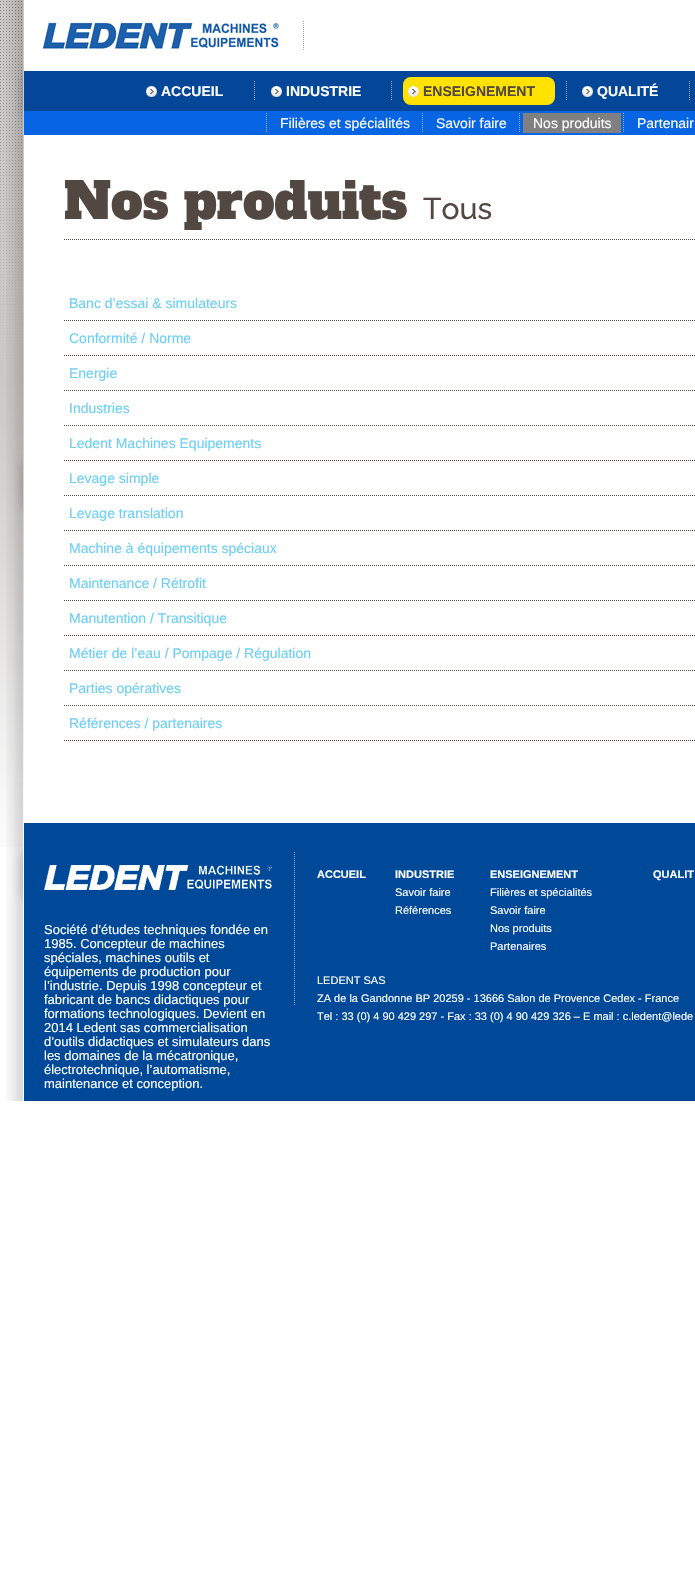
#include "include/core/SkBlurTypes.h"
#include "include/core/SkCanvas.h"
#include "include/core/SkData.h"
#include "include/core/SkFont.h"
#include "include/core/SkFontMgr.h"
#include "include/core/SkImage.h"
#include "include/core/SkMaskFilter.h"
#include "include/core/SkPaint.h"
#include "include/core/SkPathBuilder.h"
#include "include/core/SkTextBlob.h"
#include "include/effects/SkDashPathEffect.h"
#include "include/effects/SkGradientShader.h"
#include "include/utils/SkParsePath.h"

extern sk_sp<SkFontMgr> fontMgr;

void draw(SkCanvas* canvas) {
  SkPaint p;
  p.setAntiAlias(true);
  canvas->clear(SK_ColorWHITE);
  canvas->drawImageRect(SkImages::DeferredFromEncodedData(SkData::MakeFromFileName("images/1.png")), SkRect::MakeLTRB(0, 0, 24, 847), SkSamplingOptions());
  canvas->drawImageRect(SkImages::DeferredFromEncodedData(SkData::MakeFromFileName("images/2.png")), SkRect::MakeLTRB(6, 0, 23, 1101), SkSamplingOptions());
  canvas->drawImageRect(SkImages::DeferredFromEncodedData(SkData::MakeFromFileName("images/3.png")), SkRect::MakeLTRB(42, 22, 279, 49), SkSamplingOptions());
  canvas->drawImageRect(SkImages::DeferredFromEncodedData(SkData::MakeFromFileName("images/4.png")), SkRect::MakeLTRB(303, 21, 304, 50), SkSamplingOptions());
  p.setColor(SkColorSetRGB(4, 71, 152));
  canvas->drawRect(SkRect::MakeLTRB(24, 71, 695, 111), p);
  canvas->drawImageRect(SkImages::DeferredFromEncodedData(SkData::MakeFromFileName("images/5.png")), SkRect::MakeLTRB(146, 86, 157, 97), SkSamplingOptions());
  canvas->drawImageRect(SkImages::DeferredFromEncodedData(SkData::MakeFromFileName("images/6.png")), SkRect::MakeLTRB(254, 81, 255, 100), SkSamplingOptions());
  canvas->drawImageRect(SkImages::DeferredFromEncodedData(SkData::MakeFromFileName("images/5.png")), SkRect::MakeLTRB(271, 86, 282, 97), SkSamplingOptions());
  canvas->drawImageRect(SkImages::DeferredFromEncodedData(SkData::MakeFromFileName("images/6.png")), SkRect::MakeLTRB(391, 81, 392, 100), SkSamplingOptions());
  p.setColor(SkColorSetRGB(255, 226, 0));
  canvas->drawRoundRect(SkRect::MakeLTRB(403, 77, 555, 105), 8, 8, p);
  canvas->drawImageRect(SkImages::DeferredFromEncodedData(SkData::MakeFromFileName("images/7.png")), SkRect::MakeLTRB(408, 86, 419, 97), SkSamplingOptions());
  canvas->drawImageRect(SkImages::DeferredFromEncodedData(SkData::MakeFromFileName("images/6.png")), SkRect::MakeLTRB(566, 81, 567, 100), SkSamplingOptions());
  canvas->drawImageRect(SkImages::DeferredFromEncodedData(SkData::MakeFromFileName("images/5.png")), SkRect::MakeLTRB(582, 86, 593, 97), SkSamplingOptions());
  canvas->drawImageRect(SkImages::DeferredFromEncodedData(SkData::MakeFromFileName("images/6.png")), SkRect::MakeLTRB(689, 81, 690, 100), SkSamplingOptions());
  p.setColor(SkColorSetRGB(7, 101, 227));
  canvas->drawRect(SkRect::MakeLTRB(24, 111, 695, 135), p);
  canvas->drawImageRect(SkImages::DeferredFromEncodedData(SkData::MakeFromFileName("images/8.png")), SkRect::MakeLTRB(266, 113, 267, 132), SkSamplingOptions());
  canvas->drawImageRect(SkImages::DeferredFromEncodedData(SkData::MakeFromFileName("images/8.png")), SkRect::MakeLTRB(422, 113, 423, 132), SkSamplingOptions());
  canvas->drawImageRect(SkImages::DeferredFromEncodedData(SkData::MakeFromFileName("images/8.png")), SkRect::MakeLTRB(519, 113, 520, 132), SkSamplingOptions());
  p.setColor(SkColorSetRGB(128, 128, 128));
  canvas->drawRect(SkRect::MakeLTRB(523, 113, 621, 133), p);
  canvas->drawImageRect(SkImages::DeferredFromEncodedData(SkData::MakeFromFileName("images/8.png")), SkRect::MakeLTRB(623, 113, 624, 132), SkSamplingOptions());
  p.setStyle(SkPaint::kStroke_Style);
  p.setStrokeWidth(1);
  p.setColor(SkColorSetRGB(83, 71, 65));
  p.setPathEffect(SkDashPathEffect::Make({{1, 1}}, 0));
  canvas->drawPath(SkPathBuilder().moveTo(64, 239.5f).lineTo(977, 239.5f).detach(), p);
  p.setPathEffect(nullptr);
  p.setPathEffect(SkDashPathEffect::Make({{1, 1}}, 0));
  canvas->drawPath(SkPathBuilder().moveTo(64, 320.5f).lineTo(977, 320.5f).detach(), p);
  p.setPathEffect(nullptr);
  p.setPathEffect(SkDashPathEffect::Make({{1, 1}}, 0));
  canvas->drawPath(SkPathBuilder().moveTo(64, 355.5f).lineTo(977, 355.5f).detach(), p);
  p.setPathEffect(nullptr);
  p.setPathEffect(SkDashPathEffect::Make({{1, 1}}, 0));
  canvas->drawPath(SkPathBuilder().moveTo(64, 390.5f).lineTo(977, 390.5f).detach(), p);
  p.setPathEffect(nullptr);
  p.setPathEffect(SkDashPathEffect::Make({{1, 1}}, 0));
  canvas->drawPath(SkPathBuilder().moveTo(64, 425.5f).lineTo(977, 425.5f).detach(), p);
  p.setPathEffect(nullptr);
  p.setPathEffect(SkDashPathEffect::Make({{1, 1}}, 0));
  canvas->drawPath(SkPathBuilder().moveTo(64, 460.5f).lineTo(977, 460.5f).detach(), p);
  p.setPathEffect(nullptr);
  p.setPathEffect(SkDashPathEffect::Make({{1, 1}}, 0));
  canvas->drawPath(SkPathBuilder().moveTo(64, 495.5f).lineTo(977, 495.5f).detach(), p);
  p.setPathEffect(nullptr);
  p.setPathEffect(SkDashPathEffect::Make({{1, 1}}, 0));
  canvas->drawPath(SkPathBuilder().moveTo(64, 530.5f).lineTo(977, 530.5f).detach(), p);
  p.setPathEffect(nullptr);
  p.setPathEffect(SkDashPathEffect::Make({{1, 1}}, 0));
  canvas->drawPath(SkPathBuilder().moveTo(64, 565.5f).lineTo(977, 565.5f).detach(), p);
  p.setPathEffect(nullptr);
  p.setPathEffect(SkDashPathEffect::Make({{1, 1}}, 0));
  canvas->drawPath(SkPathBuilder().moveTo(64, 600.5f).lineTo(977, 600.5f).detach(), p);
  p.setPathEffect(nullptr);
  p.setPathEffect(SkDashPathEffect::Make({{1, 1}}, 0));
  canvas->drawPath(SkPathBuilder().moveTo(64, 635.5f).lineTo(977, 635.5f).detach(), p);
  p.setPathEffect(nullptr);
  p.setPathEffect(SkDashPathEffect::Make({{1, 1}}, 0));
  canvas->drawPath(SkPathBuilder().moveTo(64, 670.5f).lineTo(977, 670.5f).detach(), p);
  p.setPathEffect(nullptr);
  p.setPathEffect(SkDashPathEffect::Make({{1, 1}}, 0));
  canvas->drawPath(SkPathBuilder().moveTo(64, 705.5f).lineTo(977, 705.5f).detach(), p);
  p.setPathEffect(nullptr);
  p.setPathEffect(SkDashPathEffect::Make({{1, 1}}, 0));
  canvas->drawPath(SkPathBuilder().moveTo(64, 740.5f).lineTo(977, 740.5f).detach(), p);
  p.setPathEffect(nullptr);
  p.setStyle(SkPaint::kFill_Style);
  p.setColor(SkColorSetRGB(0, 73, 152));
  canvas->drawRect(SkRect::MakeLTRB(24, 823, 695, 1101), p);
  canvas->drawImageRect(SkImages::DeferredFromEncodedData(SkData::MakeFromFileName("images/9.png")), SkRect::MakeLTRB(44, 865, 272, 890), SkSamplingOptions());
  canvas->drawImageRect(SkImages::DeferredFromEncodedData(SkData::MakeFromFileName("images/10.png")), SkRect::MakeLTRB(294, 852, 295, 1005), SkSamplingOptions());
  SkFont font1(fontMgr->matchFamilyStyle("Liberation Sans", SkFontStyle::Bold()), 14);
  font1.setSubpixel(true);
  p.setColor(SK_ColorWHITE);
  canvas->drawString("ACCUEIL", 161, 96, font1, p);
  canvas->drawString("INDUSTRIE", 286, 96, font1, p);
  p.setColor(SkColorSetRGB(83, 71, 65));
  canvas->drawString("ENSEIGNEMENT", 423, 96, font1, p);
  p.setColor(SK_ColorWHITE);
  canvas->drawString("QUALITÉ", 597, 96, font1, p);
  SkFont font2(fontMgr->matchFamilyStyle("Liberation Sans", SkFontStyle::Normal()), 14);
  font2.setSubpixel(true);
  canvas->drawString("Filières et spécialités", 280, 128, font2, p);
  canvas->drawString("Savoir faire", 436, 128, font2, p);
  canvas->drawString("Nos produits", 533, 128, font2, p);
  canvas->drawString("Partenair", 637, 128, font2, p);
  SkFont font3(fontMgr->matchFamilyStyle("Alfa Slab One", SkFontStyle::Normal()), 50);
  font3.setSubpixel(true);
  p.setColor(SkColorSetRGB(83, 71, 65));
  canvas->drawString("Nos produits", 64, 219, font3, p);
  SkFont font4(fontMgr->matchFamilyStyle("Raleway", SkFontStyle(100, SkFontStyle::kNormal_Width, SkFontStyle::kUpright_Slant)), 30);
  font4.setSubpixel(true);
  canvas->drawString("Tous", 423, 219, font4, p);
  p.setColor(SkColorSetRGB(109, 207, 246));
  canvas->drawString("Banc d’essai & simulateurs", 69, 308, font2, p);
  canvas->drawString("Conformité / Norme", 69, 343, font2, p);
  canvas->drawString("Energie", 69, 378, font2, p);
  canvas->drawString("Industries", 69, 413, font2, p);
  canvas->drawString("Ledent Machines Equipements", 69, 448, font2, p);
  canvas->drawString("Levage simple", 69, 483, font2, p);
  canvas->drawString("Levage translation", 69, 518, font2, p);
  canvas->drawString("Machine à équipements spéciaux", 69, 553, font2, p);
  canvas->drawString("Maintenance / Rétrofit", 69, 588, font2, p);
  canvas->drawString("Manutention / Transitique", 69, 623, font2, p);
  canvas->drawString("Métier de l’eau / Pompage / Régulation", 69, 658, font2, p);
  canvas->drawString("Parties opératives", 69, 693, font2, p);
  canvas->drawString("Références / partenaires", 69, 728, font2, p);
  SkFont font5(fontMgr->matchFamilyStyle("Liberation Sans", SkFontStyle::Normal()), 13);
  font5.setSubpixel(true);
  p.setColor(SK_ColorWHITE);
  canvas->drawString("Société d’études techniques fondée en", 44, 934, font5, p);
  canvas->drawString("1985. Concepteur de machines", 44, 948, font5, p);
  canvas->drawString("spéciales, machines outils et", 44, 962, font5, p);
  canvas->drawString("équipements de production pour", 44, 976, font5, p);
  canvas->drawString("l’industrie. Depuis 1998 concepteur et", 44, 990, font5, p);
  canvas->drawString("fabricant de bancs didactiques pour", 44, 1004, font5, p);
  canvas->drawString("formations technologiques. Devient en", 44, 1018, font5, p);
  canvas->drawString("2014 Ledent sas commercialisation", 44, 1032, font5, p);
  canvas->drawString("d’outils didactiques et simulateurs dans", 44, 1046, font5, p);
  canvas->drawString("les domaines de la mécatronique,", 44, 1060, font5, p);
  canvas->drawString("électrotechnique, l’automatisme,", 44, 1074, font5, p);
  canvas->drawString("maintenance et conception.", 44, 1088, font5, p);
  SkFont font6(fontMgr->matchFamilyStyle("Liberation Sans", SkFontStyle::Bold()), 11);
  font6.setSubpixel(true);
  canvas->drawString("ACCUEIL", 317, 878, font6, p);
  canvas->drawString("INDUSTRIE", 395, 878, font6, p);
  SkFont font7(fontMgr->matchFamilyStyle("Liberation Sans", SkFontStyle::Normal()), 11);
  font7.setSubpixel(true);
  canvas->drawString("Savoir faire", 395, 896, font7, p);
  canvas->drawString("Références", 395, 914, font7, p);
  canvas->drawString("ENSEIGNEMENT", 490, 878, font6, p);
  canvas->drawString("Filières et spécialités", 490, 896, font7, p);
  canvas->drawString("Savoir faire", 490, 914, font7, p);
  canvas->drawString("Nos produits", 490, 932, font7, p);
  canvas->drawString("Partenaires", 490, 950, font7, p);
  canvas->drawString("QUALIT", 653, 878, font6, p);
  canvas->drawString("LEDENT SAS", 317, 984, font7, p);
  canvas->drawString("ZA de la Gandonne BP 20259 - 13666 Salon de Provence Cedex - France", 317, 1002, font7, p);
  canvas->drawString("Tel : 33 (0) 4 90 429 297 - Fax : 33 (0) 4 90 429 326 – E mail : c.ledent@lede", 317, 1020, font7, p);
}
